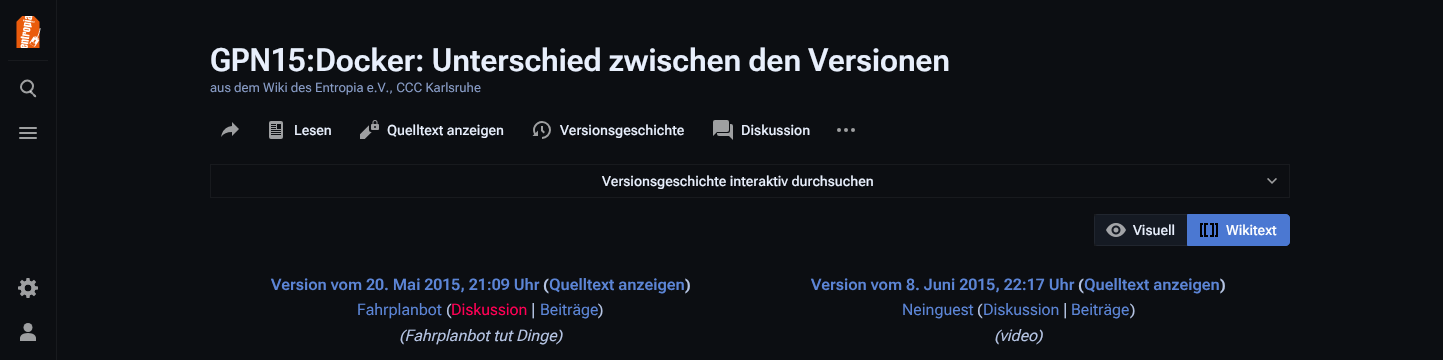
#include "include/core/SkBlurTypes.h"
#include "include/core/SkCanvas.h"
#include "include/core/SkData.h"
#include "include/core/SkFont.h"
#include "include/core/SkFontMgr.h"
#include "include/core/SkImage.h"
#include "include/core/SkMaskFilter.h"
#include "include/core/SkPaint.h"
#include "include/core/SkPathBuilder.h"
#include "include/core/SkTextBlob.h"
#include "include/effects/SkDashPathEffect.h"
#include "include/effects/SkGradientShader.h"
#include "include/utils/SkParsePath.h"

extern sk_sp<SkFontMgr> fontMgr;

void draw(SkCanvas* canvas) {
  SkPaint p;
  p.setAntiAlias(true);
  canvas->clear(SkColorSetRGB(12, 14, 18));
  p.setColor(SkColorSetRGB(24, 26, 30));
  canvas->drawRect(SkRect::MakeLTRB(56, 0, 57, 360), p);
  canvas->drawRect(SkRect::MakeLTRB(8, 60, 48, 61), p);
  canvas->drawImageRect(SkImages::DeferredFromEncodedData(SkData::MakeFromFileName("images/1.png")), SkRect::MakeLTRB(16, 16, 41, 48), SkSamplingOptions());
  p.setColor(SkColorSetRGB(158, 159, 160));
  canvas->drawPath(SkPathBuilder().moveTo(30, 91).cubicTo(31.5f, 90, 33, 92.5f, 33.5f, 93.5f).cubicTo(34.5f, 94, 37, 95.5f, 36, 97).cubicTo(34.5f, 98, 33, 95.5f, 32.5f, 94.5f).cubicTo(31.5f, 94, 29, 92.5f, 30, 91).close().detach(), p);
  p.setStyle(SkPaint::kStroke_Style);
  p.setStrokeWidth(2);
  p.setColor(SkColorSetARGB(153, 255, 255, 255));
  canvas->drawPath(SkPathBuilder().moveTo(23, 82.5f).cubicTo(28.5f, 76.5f, 37, 85, 31, 90.5f).cubicTo(25.5f, 96.5f, 17, 88, 23, 82.5f).close().detach(), p);
  p.setStyle(SkPaint::kFill_Style);
  p.setColor(SkColorSetRGB(158, 159, 160));
  canvas->drawRoundRect(SkRect::MakeLTRB(19, 127, 37, 129), 1, 1, p);
  canvas->drawRoundRect(SkRect::MakeLTRB(19, 132, 37, 134), 1, 1, p);
  canvas->drawRoundRect(SkRect::MakeLTRB(19, 137, 37, 139), 1, 1, p);
  canvas->drawImageRect(SkImages::DeferredFromEncodedData(SkData::MakeFromFileName("images/2.png")), SkRect::MakeLTRB(18, 278, 38, 298), SkSamplingOptions());
  canvas->drawImageRect(SkImages::DeferredFromEncodedData(SkData::MakeFromFileName("images/3.png")), SkRect::MakeLTRB(20, 323, 36, 341), SkSamplingOptions());
  canvas->drawImageRect(SkImages::DeferredFromEncodedData(SkData::MakeFromFileName("images/4.png")), SkRect::MakeLTRB(221, 122, 239, 137), SkSamplingOptions());
  canvas->drawImageRect(SkImages::DeferredFromEncodedData(SkData::MakeFromFileName("images/5.png")), SkRect::MakeLTRB(269, 121, 283, 139), SkSamplingOptions());
  canvas->drawImageRect(SkImages::DeferredFromEncodedData(SkData::MakeFromFileName("images/6.png")), SkRect::MakeLTRB(360, 120, 379, 139), SkSamplingOptions());
  canvas->drawImageRect(SkImages::DeferredFromEncodedData(SkData::MakeFromFileName("images/7.png")), SkRect::MakeLTRB(532, 121, 551, 139), SkSamplingOptions());
  canvas->drawImageRect(SkImages::DeferredFromEncodedData(SkData::MakeFromFileName("images/8.png")), SkRect::MakeLTRB(713, 120, 733, 140), SkSamplingOptions());
  canvas->drawImageRect(SkImages::DeferredFromEncodedData(SkData::MakeFromFileName("images/9.png")), SkRect::MakeLTRB(837, 128, 855, 132), SkSamplingOptions());
  p.setStyle(SkPaint::kStroke_Style);
  p.setStrokeWidth(1);
  p.setColor(SkColorSetRGB(24, 26, 30));
  canvas->drawRect(SkRect::MakeLTRB(210.5f, 164.5f, 1289.5f, 197.5f), p);
  canvas->drawImageRect(SkImages::DeferredFromEncodedData(SkData::MakeFromFileName("images/10.png")), SkRect::MakeLTRB(1267, 178, 1277, 184), SkSamplingOptions());
  p.setStyle(SkPaint::kFill_Style);
  p.setColor(SkColorSetRGB(21, 26, 35));
  canvas->drawPath(SkPathBuilder().moveTo(1098, 214).lineTo(1188, 214).lineTo(1188, 246).lineTo(1098, 246).cubicTo(1096, 246, 1094, 244, 1094, 242).lineTo(1094, 218).cubicTo(1094, 216, 1096, 214, 1098, 214).close().detach(), p);
  p.setStyle(SkPaint::kStroke_Style);
  p.setColor(SkColorSetARGB(13, 255, 255, 255));
  canvas->drawRect(SkRect::MakeLTRB(1094.5f, 214.5f, 1187.5f, 245.5f), p);
  canvas->drawImageRect(SkImages::DeferredFromEncodedData(SkData::MakeFromFileName("images/11.png")), SkRect::MakeLTRB(1106, 223, 1126, 237), SkSamplingOptions());
  p.setStyle(SkPaint::kFill_Style);
  p.setColor(SkColorSetRGB(75, 120, 210));
  canvas->drawPath(SkPathBuilder().moveTo(1187.5f, 214.5f).lineTo(1286, 214.5f).cubicTo(1288, 214.5f, 1289.5f, 216, 1289.5f, 218).lineTo(1289.5f, 242).cubicTo(1289.5f, 244, 1288, 245.5f, 1286, 245.5f).lineTo(1187.5f, 245.5f).close().detach(), p);
  p.setStyle(SkPaint::kStroke_Style);
  canvas->drawPath(SkPathBuilder().moveTo(1187.5f, 214.5f).lineTo(1286, 214.5f).cubicTo(1288, 214.5f, 1289.5f, 216, 1289.5f, 218).lineTo(1289.5f, 242).cubicTo(1289.5f, 244, 1288, 245.5f, 1286, 245.5f).lineTo(1187.5f, 245.5f).close().detach(), p);
  canvas->drawImageRect(SkImages::DeferredFromEncodedData(SkData::MakeFromFileName("images/12.png")), SkRect::MakeLTRB(1200, 223, 1218, 237), SkSamplingOptions());
  SkFont font1(fontMgr->matchFamilyStyle("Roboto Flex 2", SkFontStyle(600, SkFontStyle::kNormal_Width, SkFontStyle::kUpright_Slant)), 32);
  font1.setSubpixel(true);
  p.setStyle(SkPaint::kFill_Style);
  p.setColor(SkColorSetRGB(232, 239, 252));
  canvas->drawString("GPN15:Docker: Unterschied zwischen den Versionen", 210, 71, font1, p);
  SkFont font2(fontMgr->matchFamilyStyle("Roboto Flex 2", SkFontStyle::Normal()), 13);
  font2.setSubpixel(true);
  p.setColor(SkColorSetRGB(135, 155, 197));
  canvas->drawString("aus dem Wiki des Entropia e.V., CCC Karlsruhe", 210, 92, font2, p);
  SkFont font3(fontMgr->matchFamilyStyle("Roboto Flex", SkFontStyle(500, SkFontStyle::kNormal_Width, SkFontStyle::kUpright_Slant)), 14);
  font3.setSubpixel(true);
  p.setColor(SkColorSetRGB(232, 239, 252));
  canvas->drawString("Lesen", 294, 135, font3, p);
  canvas->drawString("Quelltext anzeigen", 387, 135, font3, p);
  canvas->drawString("Versionsgeschichte", 560, 135, font3, p);
  canvas->drawString("Diskussion", 741, 135, font3, p);
  canvas->drawString("Versionsgeschichte interaktiv durchsuchen", 602, 186, font3, p);
  canvas->drawString("Visuell", 1133, 235, font3, p);
  p.setColor(SK_ColorWHITE);
  canvas->drawString("Wikitext", 1226, 235, font3, p);
  SkFont font4(fontMgr->matchFamilyStyle("Roboto Flex", SkFontStyle(600, SkFontStyle::kNormal_Width, SkFontStyle::kUpright_Slant)), 16);
  font4.setSubpixel(true);
  p.setColor(SkColorSetRGB(92, 133, 214));
  canvas->drawString("Version vom 20. Mai 2015, 21:09 Uhr", 271, 290, font4, p);
  p.setColor(SkColorSetRGB(181, 196, 227));
  canvas->drawString("(", 543, 290, font4, p);
  p.setColor(SkColorSetRGB(92, 133, 214));
  canvas->drawString("Quelltext anzeigen", 549, 290, font4, p);
  p.setColor(SkColorSetRGB(181, 196, 227));
  canvas->drawString(")", 685, 290, font4, p);
  SkFont font5(fontMgr->matchFamilyStyle("Roboto Flex", SkFontStyle::Normal()), 16);
  font5.setSubpixel(true);
  p.setColor(SkColorSetRGB(92, 133, 214));
  canvas->drawString("Fahrplanbot", 357, 315, font5, p);
  p.setColor(SkColorSetRGB(181, 196, 227));
  canvas->drawString("(", 446, 315, font5, p);
  p.setColor(SkColorSetRGB(255, 0, 85));
  canvas->drawString("Diskussion", 451, 315, font5, p);
  p.setColor(SkColorSetRGB(181, 196, 227));
  canvas->drawString("|", 531, 315, font5, p);
  p.setColor(SkColorSetRGB(92, 133, 214));
  canvas->drawString("Beiträge", 540, 315, font5, p);
  p.setColor(SkColorSetRGB(181, 196, 227));
  canvas->drawString(")", 598, 315, font5, p);
  SkFont font6(fontMgr->matchFamilyStyle("Roboto Flex", SkFontStyle::Italic()), 16);
  font6.setSubpixel(true);
  canvas->drawString("(Fahrplanbot tut Dinge)", 399, 341, font6, p);
  p.setColor(SkColorSetRGB(92, 133, 214));
  canvas->drawString("Version vom 8. Juni 2015, 22:17 Uhr", 811, 290, font4, p);
  p.setColor(SkColorSetRGB(181, 196, 227));
  canvas->drawString("(", 1078, 290, font4, p);
  p.setColor(SkColorSetRGB(92, 133, 214));
  canvas->drawString("Quelltext anzeigen", 1084, 290, font4, p);
  p.setColor(SkColorSetRGB(181, 196, 227));
  canvas->drawString(")", 1220, 290, font4, p);
  p.setColor(SkColorSetRGB(92, 133, 214));
  canvas->drawString("Neinguest", 902, 315, font5, p);
  p.setColor(SkColorSetRGB(181, 196, 227));
  canvas->drawString("(", 977, 315, font5, p);
  p.setColor(SkColorSetRGB(92, 133, 214));
  canvas->drawString("Diskussion", 983, 315, font5, p);
  p.setColor(SkColorSetRGB(181, 196, 227));
  canvas->drawString("|", 1063, 315, font5, p);
  p.setColor(SkColorSetRGB(92, 133, 214));
  canvas->drawString("Beiträge", 1071, 315, font5, p);
  p.setColor(SkColorSetRGB(181, 196, 227));
  canvas->drawString(")", 1130, 315, font5, p);
  canvas->drawString("(video)", 994, 341, font6, p);
}
